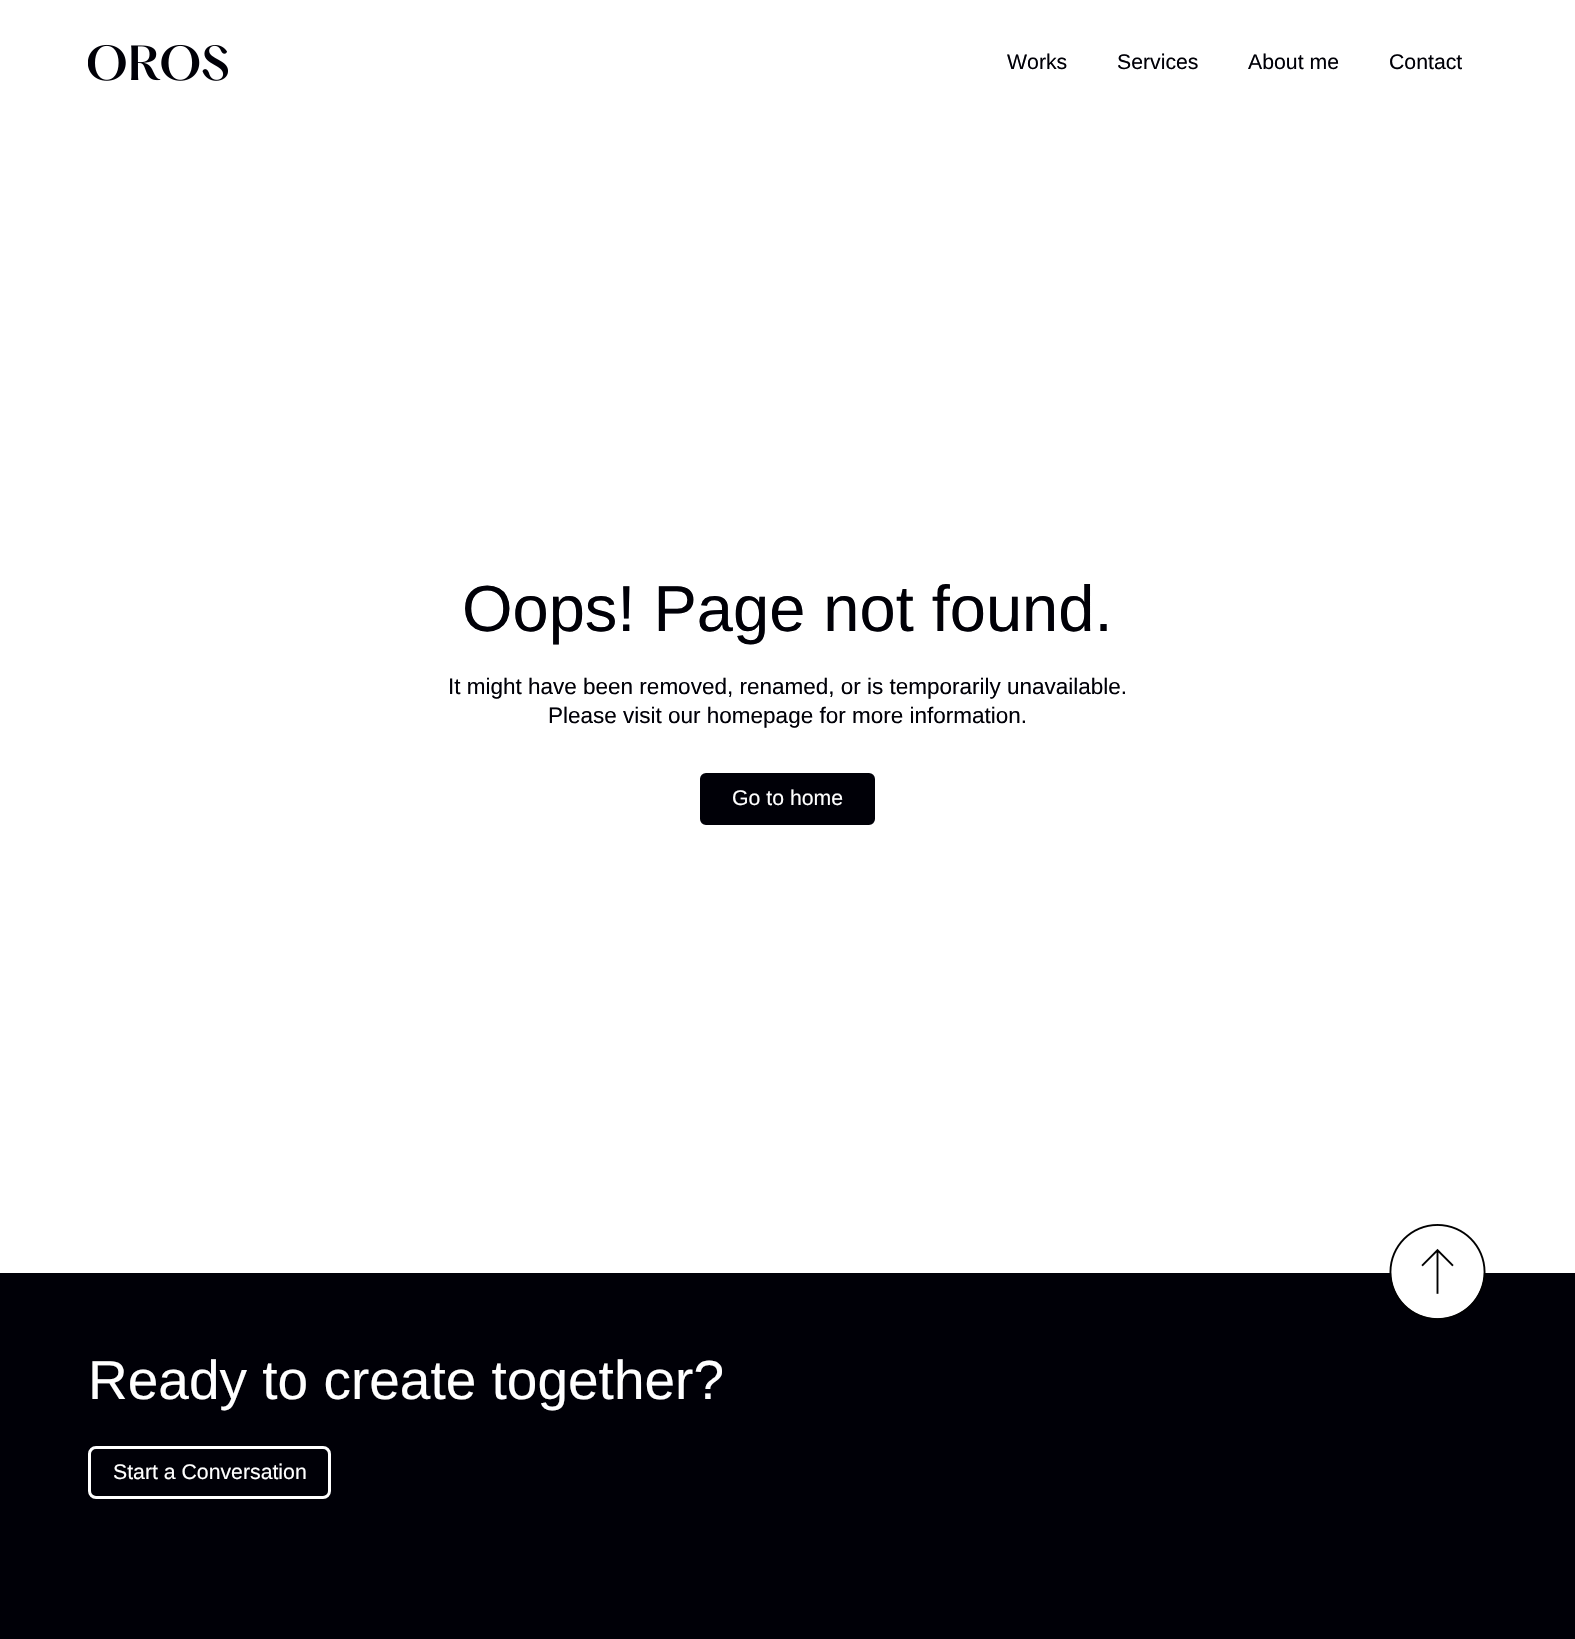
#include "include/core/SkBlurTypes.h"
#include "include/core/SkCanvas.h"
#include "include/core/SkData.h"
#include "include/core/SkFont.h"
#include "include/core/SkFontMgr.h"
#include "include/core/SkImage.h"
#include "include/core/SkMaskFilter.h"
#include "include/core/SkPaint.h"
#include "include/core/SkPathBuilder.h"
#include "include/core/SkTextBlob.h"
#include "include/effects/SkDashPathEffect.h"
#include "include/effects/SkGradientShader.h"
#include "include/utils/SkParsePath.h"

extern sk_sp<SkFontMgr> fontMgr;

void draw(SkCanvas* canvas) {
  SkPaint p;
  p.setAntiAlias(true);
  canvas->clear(SK_ColorWHITE);
  canvas->drawImageRect(SkImages::DeferredFromEncodedData(SkData::MakeFromFileName("images/1.png")), SkRect::MakeLTRB(88, 44, 228, 81), SkSamplingOptions());
  p.setColor(SkColorSetRGB(0, 0, 7));
  canvas->drawRoundRect(SkRect::MakeLTRB(698, 771, 877, 827), 8, 8, p);
  p.setStyle(SkPaint::kStroke_Style);
  p.setStrokeWidth(4);
  p.setColor(SK_ColorWHITE);
  canvas->drawRoundRect(SkRect::MakeLTRB(698, 771, 877, 827), 8, 8, p);
  p.setStyle(SkPaint::kFill_Style);
  p.setColor(SkColorSetRGB(0, 0, 7));
  canvas->drawRect(SkRect::MakeLTRB(0, 1273, 1575, 1639), p);
  canvas->drawImageRect(SkImages::DeferredFromEncodedData(SkData::MakeFromFileName("images/2.png")), SkRect::MakeLTRB(1389, 1224, 1486, 1320), SkSamplingOptions());
  p.setStyle(SkPaint::kStroke_Style);
  p.setStrokeWidth(3);
  p.setColor(SK_ColorWHITE);
  canvas->drawRoundRect(SkRect::MakeLTRB(89.5f, 1447.5f, 329.5f, 1497.5f), 6.5f, 6.5f, p);
  SkFont font1(fontMgr->matchFamilyStyle("Liberation Sans", SkFontStyle::Normal()), 21.25f);
  font1.setSubpixel(true);
  p.setStyle(SkPaint::kFill_Style);
  p.setColor(SkColorSetRGB(0, 0, 7));
  canvas->drawString("Works", 1007, 69, font1, p);
  canvas->drawString("Services", 1117, 69, font1, p);
  canvas->drawString("About me", 1248, 69, font1, p);
  canvas->drawString("Contact", 1389, 69, font1, p);
  SkFont font2(fontMgr->matchFamilyStyle("Liberation Sans", SkFontStyle::Normal()), 65);
  font2.setSubpixel(true);
  canvas->drawString("Oops! Page not found.", 462, 631, font2, p);
  SkFont font3(fontMgr->matchFamilyStyle("Liberation Sans", SkFontStyle::Normal()), 22.5f);
  font3.setSubpixel(true);
  canvas->drawString("It might have been removed, renamed, or is temporarily unavailable.", 448, 694, font3, p);
  canvas->drawString("Please visit our homepage for more information.", 548, 723, font3, p);
  p.setColor(SK_ColorWHITE);
  canvas->drawString("Go to home", 732, 805, font1, p);
  SkFont font4(fontMgr->matchFamilyStyle("Liberation Sans", SkFontStyle::Normal()), 55);
  font4.setSubpixel(true);
  canvas->drawString("Ready to create together?", 88, 1399, font4, p);
  canvas->drawString("Start a Conversation", 113, 1479, font1, p);
}
